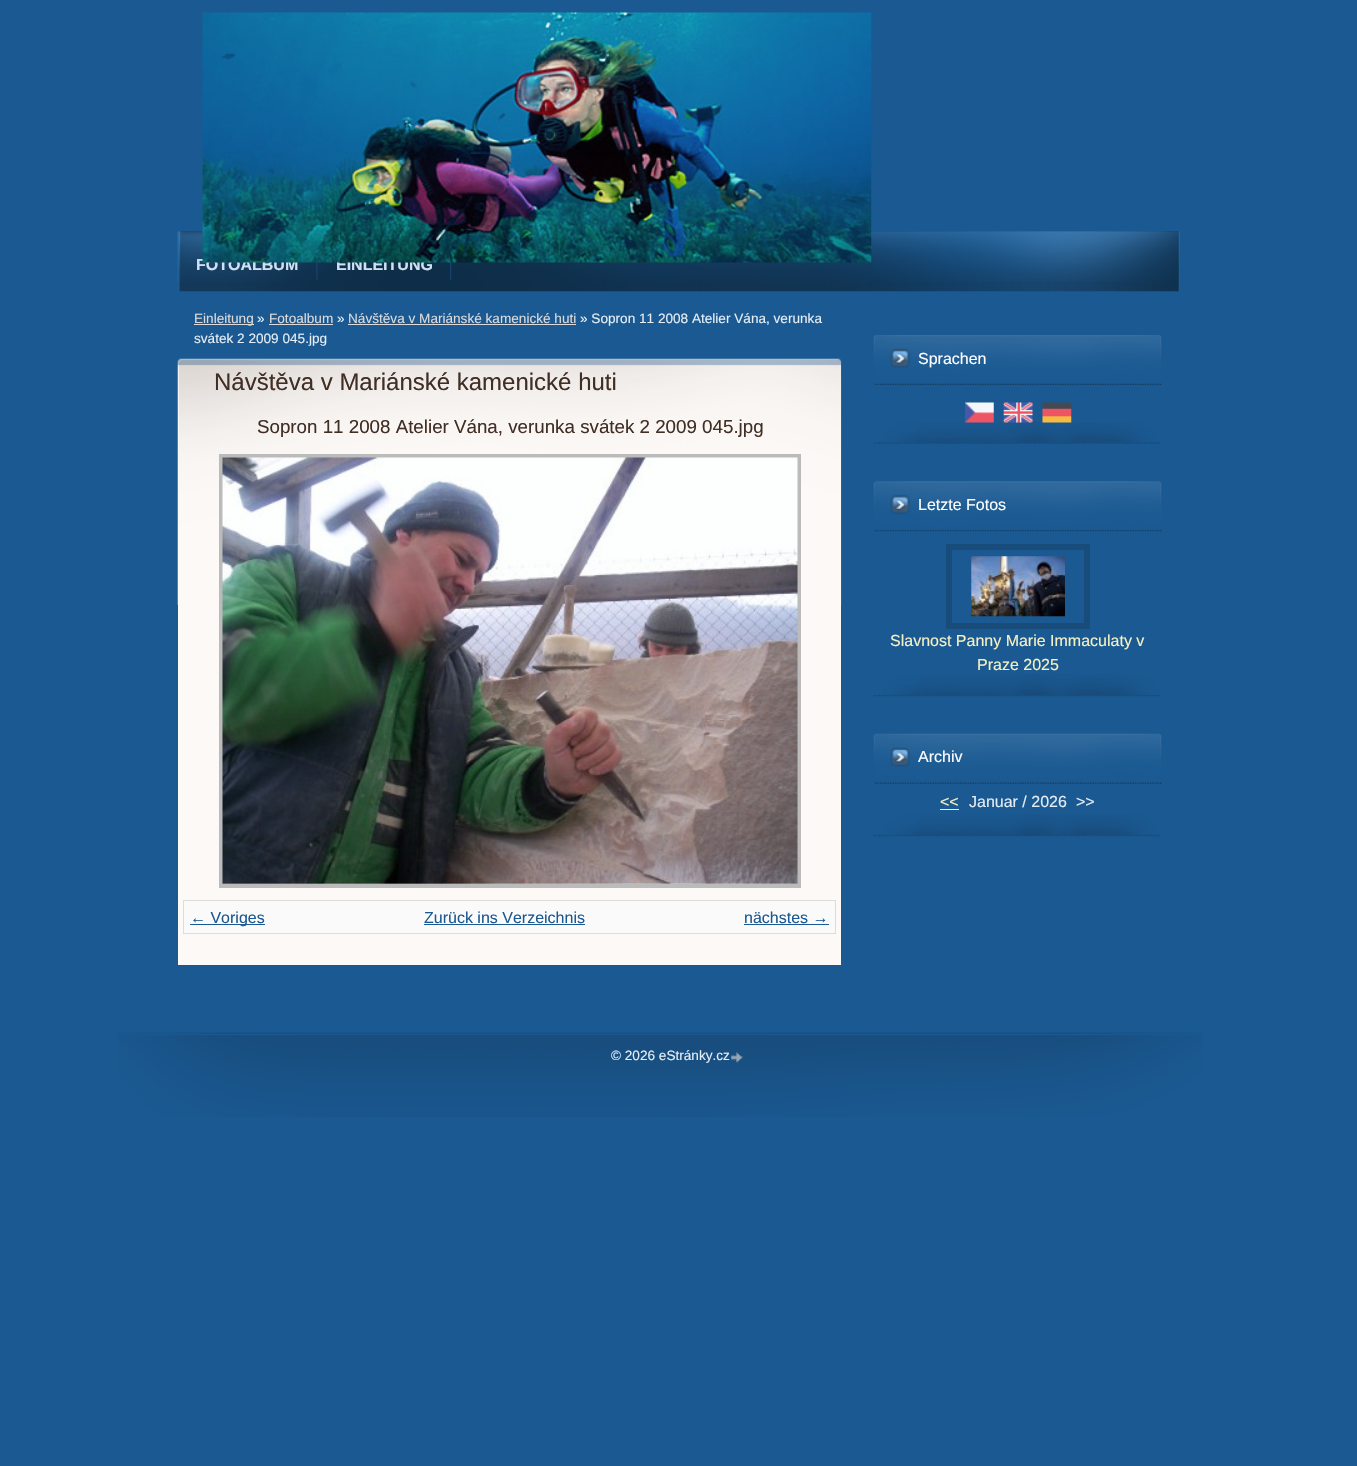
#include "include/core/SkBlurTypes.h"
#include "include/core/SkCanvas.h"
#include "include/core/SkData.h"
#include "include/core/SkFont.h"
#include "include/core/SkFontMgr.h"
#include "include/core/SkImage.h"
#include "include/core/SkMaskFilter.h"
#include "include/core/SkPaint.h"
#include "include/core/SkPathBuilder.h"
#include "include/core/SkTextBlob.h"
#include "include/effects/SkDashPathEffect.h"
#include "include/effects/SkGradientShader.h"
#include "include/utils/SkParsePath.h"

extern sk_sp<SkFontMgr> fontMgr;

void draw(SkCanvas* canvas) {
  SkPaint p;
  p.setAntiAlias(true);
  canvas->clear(SkColorSetRGB(26, 89, 146));
  canvas->drawImageRect(SkImages::DeferredFromEncodedData(SkData::MakeFromFileName("images/2.png")), SkRect::MakeLTRB(178, 231, 1180, 292), SkSamplingOptions());
  canvas->drawImageRect(SkImages::DeferredFromEncodedData(SkData::MakeFromFileName("images/3.png")), SkRect::MakeLTRB(177, 231, 1180, 282), SkSamplingOptions());
  canvas->drawImageRect(SkImages::DeferredFromEncodedData(SkData::MakeFromFileName("images/4.png")), SkRect::MakeLTRB(316, 262, 318, 280), SkSamplingOptions());
  canvas->drawImageRect(SkImages::DeferredFromEncodedData(SkData::MakeFromFileName("images/5.png")), SkRect::MakeLTRB(450, 262, 452, 280), SkSamplingOptions());
  p.setColor(SkColorSetRGB(221, 218, 217));
  canvas->drawRect(SkRect::MakeLTRB(194, 324, 254, 325), p);
  canvas->drawRect(SkRect::MakeLTRB(269, 324, 333, 325), p);
  canvas->drawRect(SkRect::MakeLTRB(348, 324, 576, 325), p);
  p.setColor(SkColorSetRGB(252, 249, 247));
  canvas->drawRect(SkRect::MakeLTRB(178, 605, 841, 965), p);
  canvas->drawImageRect(SkImages::DeferredFromEncodedData(SkData::MakeFromFileName("images/6.png")), SkRect::MakeLTRB(177, 358, 842, 605), SkSamplingOptions());
  p.setStyle(SkPaint::kStroke_Style);
  p.setStrokeWidth(4);
  p.setColor(SkColorSetRGB(187, 187, 187));
  canvas->drawRect(SkRect::MakeLTRB(221, 456, 799, 886), p);
  canvas->drawImageRect(SkImages::DeferredFromEncodedData(SkData::MakeFromFileName("images/7.png")), SkRect::MakeLTRB(222, 457, 798, 884), SkSamplingOptions());
  p.setStyle(SkPaint::kFill_Style);
  p.setColor(SkColorSetRGB(250, 250, 250));
  canvas->drawRect(SkRect::MakeLTRB(183.5f, 900.5f, 835.5f, 933.5f), p);
  p.setStyle(SkPaint::kStroke_Style);
  p.setStrokeWidth(1);
  p.setColor(SkColorSetRGB(221, 221, 221));
  canvas->drawRect(SkRect::MakeLTRB(183.5f, 900.5f, 835.5f, 933.5f), p);
  p.setStyle(SkPaint::kFill_Style);
  p.setColor(SkColorSetRGB(26, 89, 146));
  canvas->drawRect(SkRect::MakeLTRB(190, 924, 265, 925), p);
  canvas->drawRect(SkRect::MakeLTRB(424, 924, 585, 925), p);
  canvas->drawRect(SkRect::MakeLTRB(744, 924, 829, 925), p);
  canvas->drawImageRect(SkImages::DeferredFromEncodedData(SkData::MakeFromFileName("images/8.png")), SkRect::MakeLTRB(873, 335, 1162, 385), SkSamplingOptions());
  canvas->drawImageRect(SkImages::DeferredFromEncodedData(SkData::MakeFromFileName("images/9.png")), SkRect::MakeLTRB(873, 422, 1160, 444), SkSamplingOptions());
  canvas->drawImageRect(SkImages::DeferredFromEncodedData(SkData::MakeFromFileName("images/10.png")), SkRect::MakeLTRB(965, 402, 994, 423), SkSamplingOptions());
  canvas->drawImageRect(SkImages::DeferredFromEncodedData(SkData::MakeFromFileName("images/11.png")), SkRect::MakeLTRB(1003, 402, 1033, 423), SkSamplingOptions());
  canvas->drawImageRect(SkImages::DeferredFromEncodedData(SkData::MakeFromFileName("images/12.png")), SkRect::MakeLTRB(1042, 402, 1072, 423), SkSamplingOptions());
  canvas->drawImageRect(SkImages::DeferredFromEncodedData(SkData::MakeFromFileName("images/13.png")), SkRect::MakeLTRB(873, 481, 1162, 532), SkSamplingOptions());
  canvas->drawImageRect(SkImages::DeferredFromEncodedData(SkData::MakeFromFileName("images/14.png")), SkRect::MakeLTRB(873, 674, 1160, 697), SkSamplingOptions());
  p.setStyle(SkPaint::kStroke_Style);
  p.setStrokeWidth(6);
  p.setColor(SkColorSetRGB(24, 76, 123));
  canvas->drawRect(SkRect::MakeLTRB(949, 547, 1087, 626), p);
  canvas->drawImageRect(SkImages::DeferredFromEncodedData(SkData::MakeFromFileName("images/15.png")), SkRect::MakeLTRB(971, 556, 1065, 617), SkSamplingOptions());
  canvas->drawImageRect(SkImages::DeferredFromEncodedData(SkData::MakeFromFileName("images/16.png")), SkRect::MakeLTRB(873, 733, 1162, 784), SkSamplingOptions());
  canvas->drawImageRect(SkImages::DeferredFromEncodedData(SkData::MakeFromFileName("images/14.png")), SkRect::MakeLTRB(873, 814, 1160, 837), SkSamplingOptions());
  p.setStyle(SkPaint::kFill_Style);
  p.setColor(SkColorSetRGB(246, 241, 196));
  canvas->drawRect(SkRect::MakeLTRB(940, 809, 959, 810), p);
  canvas->drawImageRect(SkImages::DeferredFromEncodedData(SkData::MakeFromFileName("images/17.png")), SkRect::MakeLTRB(118, 1032, 1203, 1117), SkSamplingOptions());
  canvas->drawImageRect(SkImages::DeferredFromEncodedData(SkData::MakeFromFileName("images/18.png")), SkRect::MakeLTRB(731, 1052, 743, 1063), SkSamplingOptions());
  SkFont font1(fontMgr->matchFamilyStyle("Liberation Sans", SkFontStyle::Bold()), 16);
  font1.setSubpixel(true);
  p.setColor(SkColorSetRGB(208, 225, 241));
  canvas->drawString("FOTOALBUM", 196, 270, font1, p);
  canvas->drawString("EINLEITUNG", 336, 270, font1, p);
  canvas->drawImageRect(SkImages::DeferredFromEncodedData(SkData::MakeFromFileName("images/1.png")), SkRect::MakeLTRB(202, 12, 872, 263), SkSamplingOptions());
  SkFont font2(fontMgr->matchFamilyStyle("Liberation Sans", SkFontStyle::Normal()), 13.6f);
  font2.setSubpixel(true);
  p.setColor(SkColorSetRGB(221, 218, 217));
  canvas->drawString("Einleitung", 194, 323, font2, p);
  p.setColor(SkColorSetRGB(229, 237, 245));
  canvas->drawString("»", 257, 323, font2, p);
  p.setColor(SkColorSetRGB(221, 218, 217));
  canvas->drawString("Fotoalbum", 269, 323, font2, p);
  p.setColor(SkColorSetRGB(229, 237, 245));
  canvas->drawString("»", 337, 323, font2, p);
  p.setColor(SkColorSetRGB(221, 218, 217));
  canvas->drawString("Návštěva v Mariánské kamenické huti", 348, 323, font2, p);
  p.setColor(SkColorSetRGB(229, 237, 245));
  canvas->drawString("» Sopron 11 2008 Atelier Vána, verunka", 580, 323, font2, p);
  canvas->drawString("svátek 2 2009 045.jpg", 194, 343, font2, p);
  SkFont font3(fontMgr->matchFamilyStyle("Liberation Sans", SkFontStyle::Normal()), 24);
  font3.setSubpixel(true);
  p.setColor(SkColorSetRGB(65, 46, 36));
  canvas->drawString("Návštěva v Mariánské kamenické huti", 214, 390, font3, p);
  SkFont font4(fontMgr->matchFamilyStyle("Liberation Sans", SkFontStyle::Normal()), 18.75f);
  font4.setSubpixel(true);
  canvas->drawString("Sopron 11 2008 Atelier Vána, verunka svátek 2 2009 045.jpg", 257, 433, font4, p);
  SkFont font5(fontMgr->matchFamilyStyle("Liberation Sans", SkFontStyle::Normal()), 16);
  font5.setSubpixel(true);
  p.setColor(SkColorSetRGB(26, 89, 146));
  canvas->drawString("← Voriges", 190, 923, font5, p);
  canvas->drawString("Zurück ins Verzeichnis", 424, 923, font5, p);
  canvas->drawString("nächstes →", 744, 923, font5, p);
  p.setColor(SK_ColorWHITE);
  canvas->drawString("Sprachen", 918, 364, font5, p);
  canvas->drawString("Letzte Fotos", 918, 510, font5, p);
  p.setColor(SkColorSetRGB(246, 241, 196));
  canvas->drawString("Slavnost Panny Marie Immaculaty v", 890, 646, font5, p);
  canvas->drawString("Praze 2025", 977, 670, font5, p);
  p.setColor(SK_ColorWHITE);
  canvas->drawString("Archiv", 918, 762, font5, p);
  p.setColor(SkColorSetRGB(246, 241, 196));
  canvas->drawString("<<", 940, 807, font5, p);
  p.setColor(SkColorSetRGB(229, 237, 245));
  canvas->drawString("Januar / 2026", 969, 807, font5, p);
  canvas->drawString(">>", 1076, 807, font5, p);
  canvas->drawString("© 2026 eStránky.cz", 611, 1060, font2, p);
}
